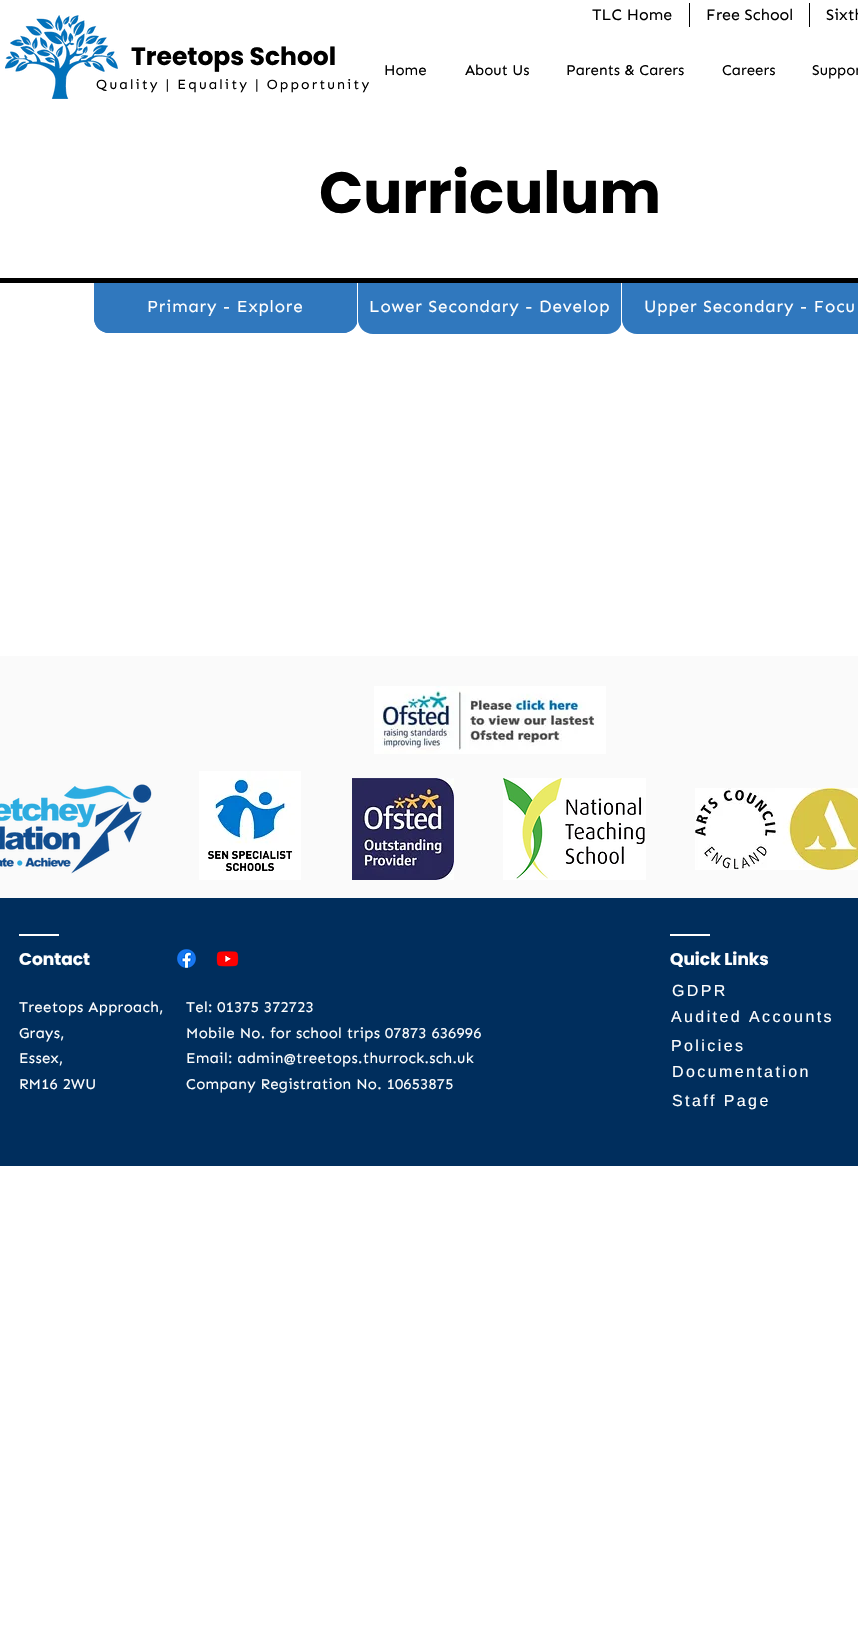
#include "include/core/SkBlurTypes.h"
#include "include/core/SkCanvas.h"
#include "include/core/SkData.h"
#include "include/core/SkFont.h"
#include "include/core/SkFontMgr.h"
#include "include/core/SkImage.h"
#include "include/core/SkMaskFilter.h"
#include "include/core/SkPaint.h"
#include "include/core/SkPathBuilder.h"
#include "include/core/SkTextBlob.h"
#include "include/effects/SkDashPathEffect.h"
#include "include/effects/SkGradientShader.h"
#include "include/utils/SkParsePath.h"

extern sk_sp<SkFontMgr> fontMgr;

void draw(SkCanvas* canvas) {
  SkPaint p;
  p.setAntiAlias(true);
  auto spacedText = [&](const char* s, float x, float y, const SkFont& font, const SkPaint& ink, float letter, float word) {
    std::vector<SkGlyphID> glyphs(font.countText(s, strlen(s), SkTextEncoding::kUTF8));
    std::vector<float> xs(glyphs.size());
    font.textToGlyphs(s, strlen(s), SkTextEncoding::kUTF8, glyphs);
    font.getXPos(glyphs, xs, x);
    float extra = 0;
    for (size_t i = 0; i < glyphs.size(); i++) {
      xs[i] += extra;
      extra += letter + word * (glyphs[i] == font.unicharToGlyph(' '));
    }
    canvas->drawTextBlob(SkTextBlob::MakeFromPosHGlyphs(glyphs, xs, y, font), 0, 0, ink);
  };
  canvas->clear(SK_ColorWHITE);
  p.setColor(SK_ColorBLACK);
  canvas->drawRect(SkRect::MakeLTRB(689, 3, 690, 27), p);
  canvas->drawRect(SkRect::MakeLTRB(809, 3, 810, 27), p);
  p.setColor(SkColorSetRGB(48, 120, 190));
  canvas->drawPath(SkPathBuilder().moveTo(94, 278).lineTo(358, 278).lineTo(358, 318).cubicTo(358, 326.5f, 351.5f, 333, 343, 333).lineTo(109, 333).cubicTo(100.5f, 333, 94, 326.5f, 94, 318).close().detach(), p);
  canvas->drawPath(SkPathBuilder().moveTo(94, 279).lineTo(357, 279).lineTo(357, 318).cubicTo(357, 326, 351, 333, 343, 333).lineTo(109, 333).cubicTo(101, 333, 94, 326, 94, 318).close().detach(), p);
  p.setColor(SK_ColorWHITE);
  canvas->drawRect(SkRect::MakeLTRB(357, 279, 358, 326), p);
  p.setColor(SkColorSetRGB(48, 120, 190));
  canvas->drawPath(SkPathBuilder().moveTo(358, 279).lineTo(622, 279).lineTo(622, 319).cubicTo(622, 327.5f, 615.5f, 334, 607, 334).lineTo(373, 334).cubicTo(364.5f, 334, 358, 327.5f, 358, 319).close().detach(), p);
  canvas->drawPath(SkPathBuilder().moveTo(358, 279).lineTo(621, 279).lineTo(621, 318).cubicTo(621, 326, 615, 333, 607, 333).lineTo(373, 333).cubicTo(365, 333, 358, 326, 358, 318).close().detach(), p);
  p.setColor(SK_ColorWHITE);
  canvas->drawRect(SkRect::MakeLTRB(621, 279, 622, 326), p);
  p.setColor(SkColorSetRGB(48, 120, 190));
  canvas->drawPath(SkPathBuilder().moveTo(622, 279).lineTo(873, 279).lineTo(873, 319).cubicTo(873, 327.5f, 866.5f, 334, 858, 334).lineTo(637, 334).cubicTo(628.5f, 334, 622, 327.5f, 622, 319).close().detach(), p);
  canvas->drawPath(SkPathBuilder().moveTo(622, 279).lineTo(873, 279).lineTo(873, 318).cubicTo(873, 326.5f, 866.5f, 333, 858, 333).lineTo(637, 333).cubicTo(628.5f, 333, 622, 326.5f, 622, 318).close().detach(), p);
  p.setColor(SK_ColorBLACK);
  canvas->drawRect(SkRect::MakeLTRB(0, 278, 858, 283), p);
  p.setColor(SkColorSetRGB(0, 46, 93));
  canvas->drawRect(SkRect::MakeLTRB(0, 898, 858, 1166), p);
  p.setColor(SkColorSetRGB(250, 250, 250));
  canvas->drawRect(SkRect::MakeLTRB(0, 656, 858, 898), p);
  canvas->drawImageRect(SkImages::DeferredFromEncodedData(SkData::MakeFromFileName("images/2.png")), SkRect::MakeLTRB(374, 686, 606, 754), SkSamplingOptions());
  canvas->drawImageRect(SkImages::DeferredFromEncodedData(SkData::MakeFromFileName("images/3.png")), SkRect::MakeLTRB(0, 784, 152, 874), SkSamplingOptions());
  canvas->drawImageRect(SkImages::DeferredFromEncodedData(SkData::MakeFromFileName("images/4.png")), SkRect::MakeLTRB(199, 771, 301, 880), SkSamplingOptions());
  canvas->drawImageRect(SkImages::DeferredFromEncodedData(SkData::MakeFromFileName("images/5.png")), SkRect::MakeLTRB(352, 778, 454, 880), SkSamplingOptions());
  canvas->drawImageRect(SkImages::DeferredFromEncodedData(SkData::MakeFromFileName("images/6.png")), SkRect::MakeLTRB(503, 778, 646, 880), SkSamplingOptions());
  canvas->drawImageRect(SkImages::DeferredFromEncodedData(SkData::MakeFromFileName("images/7.png")), SkRect::MakeLTRB(695, 788, 858, 870), SkSamplingOptions());
  p.setColor(SK_ColorWHITE);
  canvas->drawRect(SkRect::MakeLTRB(19, 934, 59, 936), p);
  canvas->drawImageRect(SkImages::DeferredFromEncodedData(SkData::MakeFromFileName("images/8.png")), SkRect::MakeLTRB(177, 949, 196, 968), SkSamplingOptions());
  canvas->drawImageRect(SkImages::DeferredFromEncodedData(SkData::MakeFromFileName("images/9.png")), SkRect::MakeLTRB(216, 951, 239, 967), SkSamplingOptions());
  canvas->drawRect(SkRect::MakeLTRB(670, 934, 710, 936), p);
  SkFont font1(fontMgr->matchFamilyStyle("Sen", SkFontStyle::Normal()), 16);
  font1.setSubpixel(true);
  p.setColor(SK_ColorBLACK);
  canvas->drawString("TLC Home", 592, 20, font1, p);
  canvas->drawString("Free School", 706, 20, font1, p);
  canvas->drawString("Sixth", 826, 20, font1, p);
  SkFont font2(fontMgr->matchFamilyStyle("Poppins", SkFontStyle::Bold()), 25);
  font2.setSubpixel(true);
  canvas->drawString("Treetops School", 131, 65, font2, p);
  SkFont font3(fontMgr->matchFamilyStyle("Sen", SkFontStyle::Normal()), 14);
  font3.setSubpixel(true);
  spacedText("Quality | Equality | Opportunity", 96, 89, font3, p, 2.1f, 0);
  canvas->drawImageRect(SkImages::DeferredFromEncodedData(SkData::MakeFromFileName("images/1.png")), SkRect::MakeLTRB(5, 15, 118, 99), SkSamplingOptions());
  SkFont font4(fontMgr->matchFamilyStyle("Sen", SkFontStyle::Normal()), 15);
  font4.setSubpixel(true);
  canvas->drawString("Home", 384, 75, font4, p);
  canvas->drawString("About Us", 465, 75, font4, p);
  canvas->drawString("Parents & Carers", 566, 75, font4, p);
  canvas->drawString("Careers", 722, 75, font4, p);
  canvas->drawString("Suppor", 812, 75, font4, p);
  SkFont font5(fontMgr->matchFamilyStyle("Poppins", SkFontStyle::Bold()), 58);
  font5.setSubpixel(true);
  canvas->drawString("Curriculum", 319, 213, font5, p);
  SkFont font6(fontMgr->matchFamilyStyle("Sen", SkFontStyle::Normal()), 17);
  font6.setSubpixel(true);
  p.setColor(SK_ColorWHITE);
  spacedText("Primary - Explore", 147, 312, font6, p, 0.85f, 0);
  spacedText("Lower Secondary - Develop", 369, 312, font6, p, 0.85f, 0);
  spacedText("Upper Secondary - Focu", 644, 312, font6, p, 0.85f, 0);
  SkFont font7(fontMgr->matchFamilyStyle("Poppins", SkFontStyle::Bold()), 17);
  font7.setSubpixel(true);
  canvas->drawString("Contact", 19, 965, font7, p);
  canvas->drawString("Quick Links", 670, 965, font7, p);
  SkFont font8(fontMgr->matchFamilyStyle("Liberation Sans", SkFontStyle::Normal()), 16);
  font8.setSubpixel(true);
  spacedText("GDPR", 672, 996, font8, p, 2.4f, 0);
  spacedText("Audited Accounts", 671, 1022, font8, p, 2.4f, 0);
  spacedText("Policies", 671, 1051, font8, p, 2.4f, 0);
  spacedText("Documentation", 672, 1077, font8, p, 2.4f, 0);
  spacedText("Staff Page", 672, 1106, font8, p, 2.4f, 0);
  spacedText("Treetops Approach,", 19, 1012, font4, p, 0.3f, 0);
  spacedText("Grays,", 19, 1038, font4, p, 0.3f, 0);
  spacedText("Essex,", 19, 1063, font4, p, 0.3f, 0);
  spacedText("RM16 2WU", 19, 1089, font4, p, 0.3f, 0);
  spacedText("Tel: 01375 372723", 186, 1012, font4, p, 0.3f, 0);
  spacedText("Mobile No. for school trips 07873 636996", 186, 1038, font4, p, 0.3f, 0);
  spacedText("Email: admin@treetops.thurrock.sch.uk", 186, 1063, font4, p, 0.3f, 0);
  spacedText("Company Registration No. 10653875", 186, 1089, font4, p, 0.3f, 0);
}
